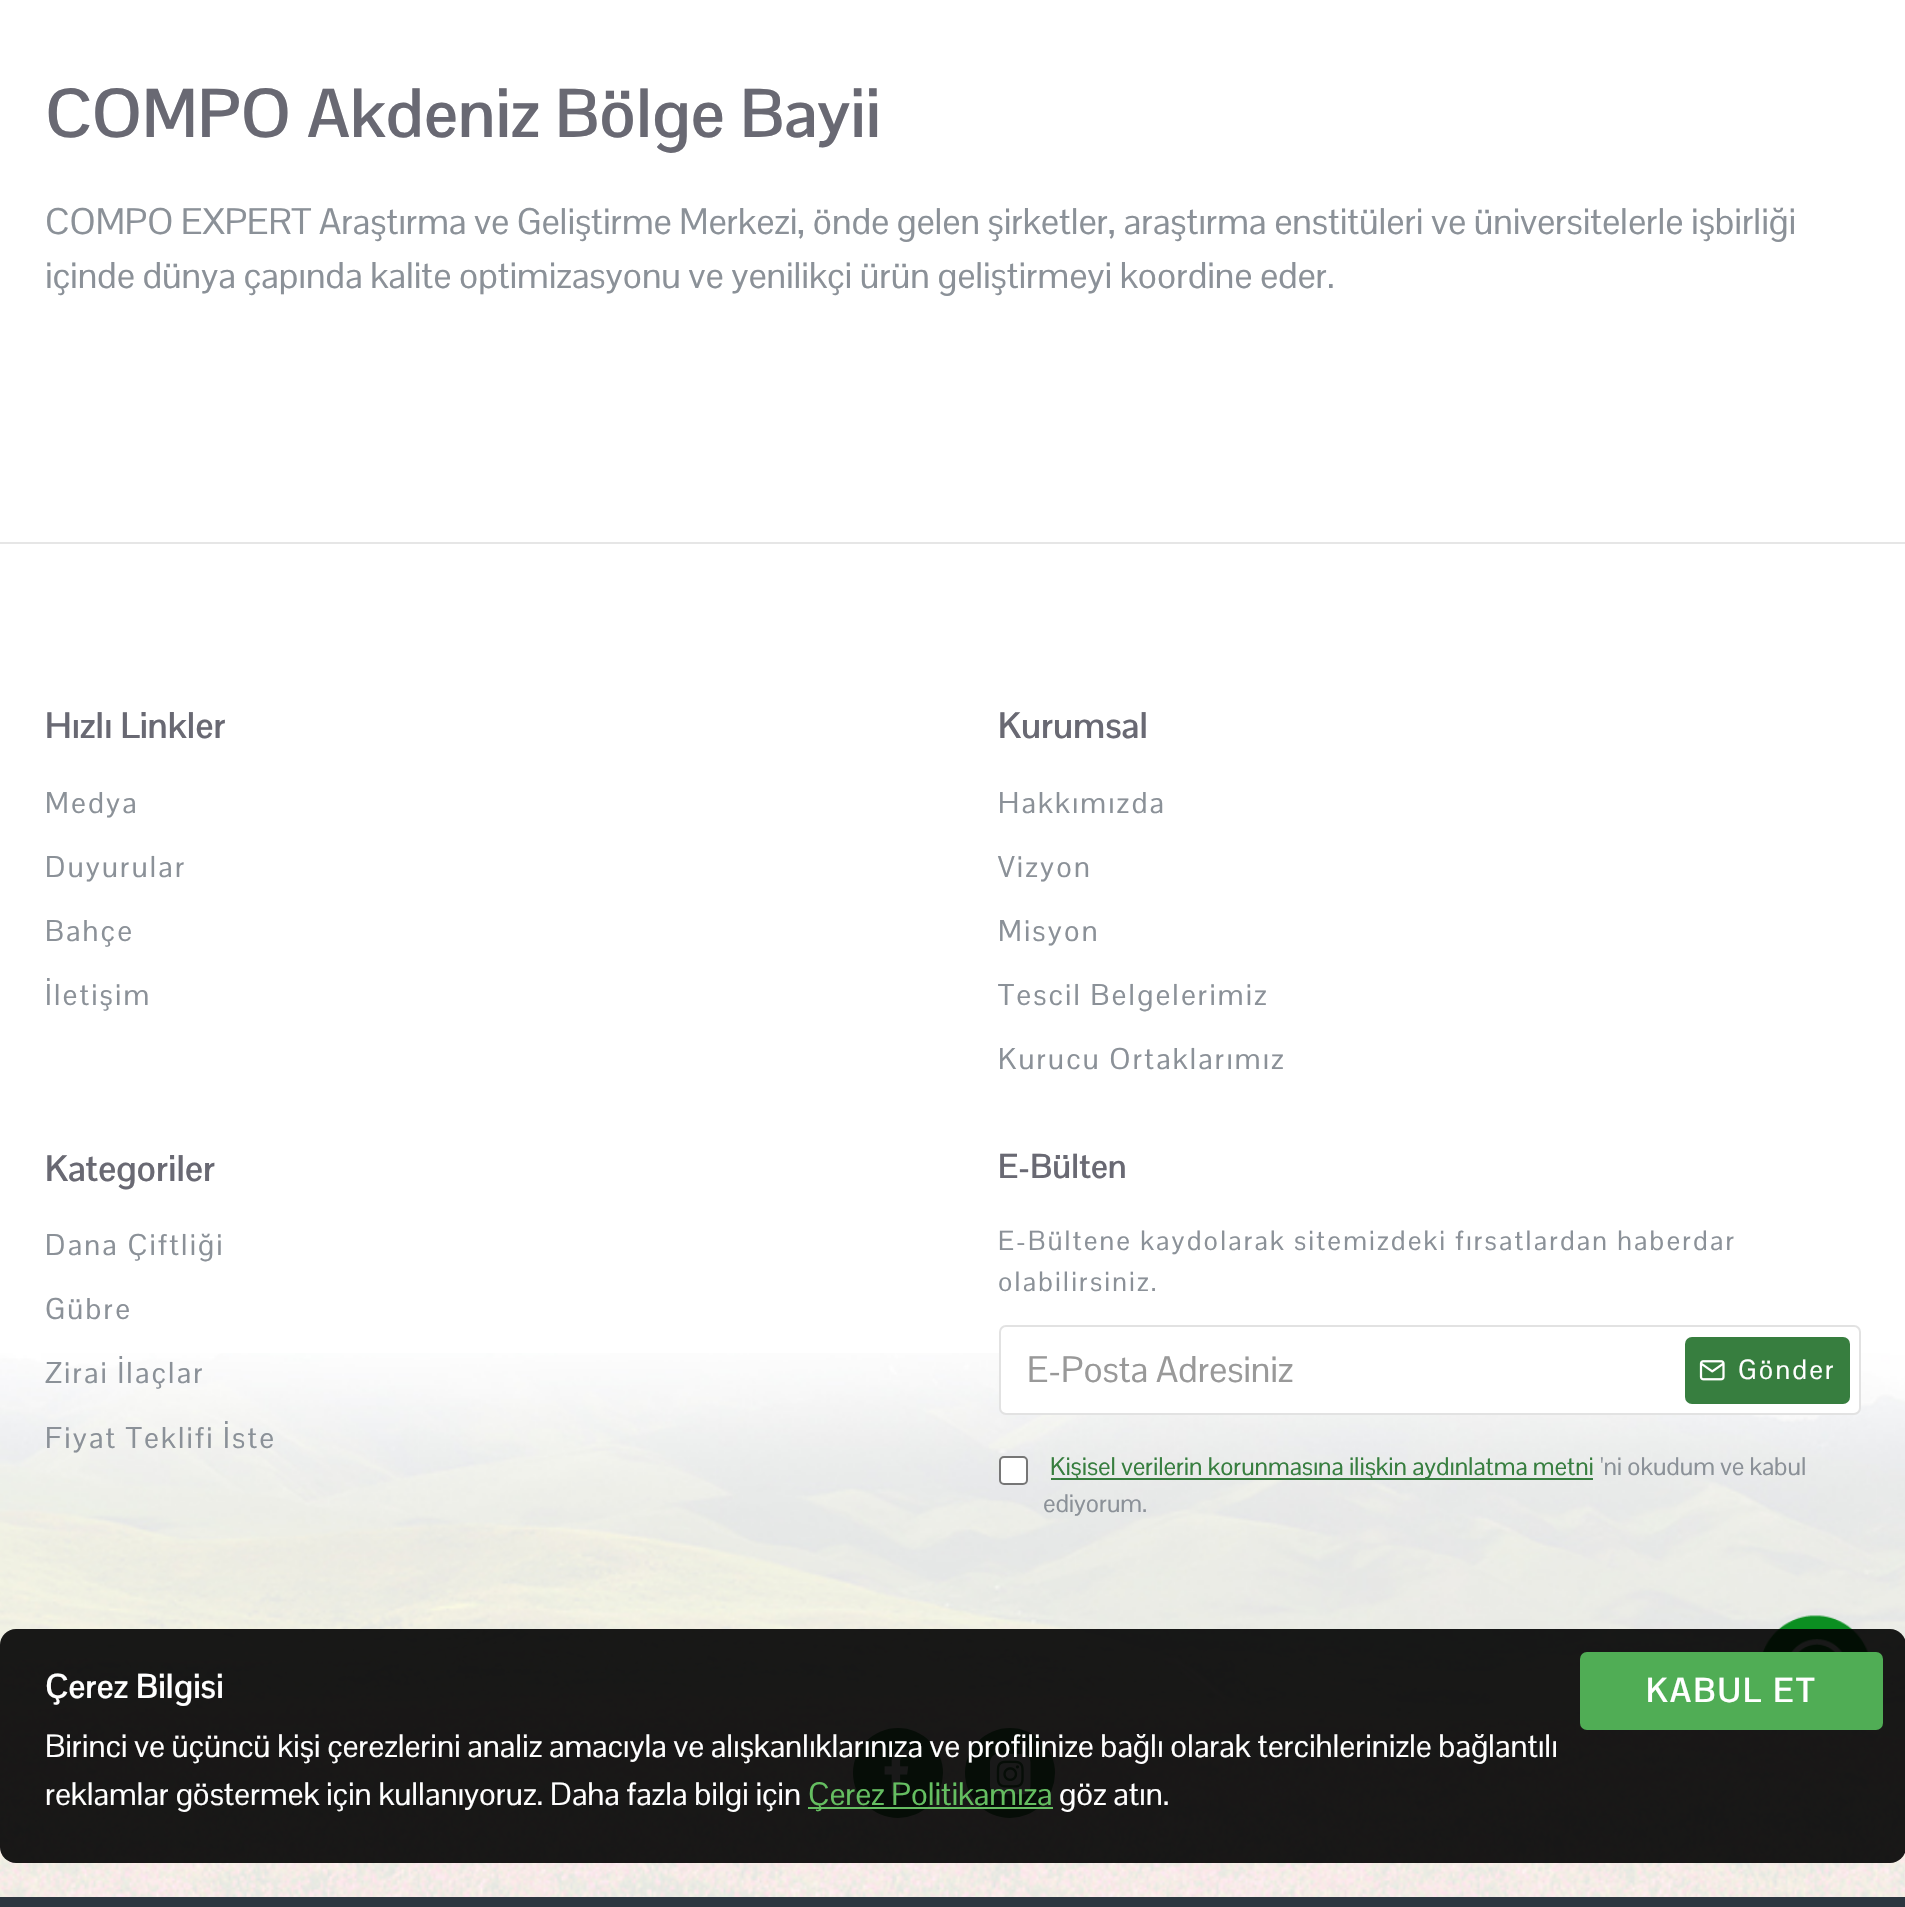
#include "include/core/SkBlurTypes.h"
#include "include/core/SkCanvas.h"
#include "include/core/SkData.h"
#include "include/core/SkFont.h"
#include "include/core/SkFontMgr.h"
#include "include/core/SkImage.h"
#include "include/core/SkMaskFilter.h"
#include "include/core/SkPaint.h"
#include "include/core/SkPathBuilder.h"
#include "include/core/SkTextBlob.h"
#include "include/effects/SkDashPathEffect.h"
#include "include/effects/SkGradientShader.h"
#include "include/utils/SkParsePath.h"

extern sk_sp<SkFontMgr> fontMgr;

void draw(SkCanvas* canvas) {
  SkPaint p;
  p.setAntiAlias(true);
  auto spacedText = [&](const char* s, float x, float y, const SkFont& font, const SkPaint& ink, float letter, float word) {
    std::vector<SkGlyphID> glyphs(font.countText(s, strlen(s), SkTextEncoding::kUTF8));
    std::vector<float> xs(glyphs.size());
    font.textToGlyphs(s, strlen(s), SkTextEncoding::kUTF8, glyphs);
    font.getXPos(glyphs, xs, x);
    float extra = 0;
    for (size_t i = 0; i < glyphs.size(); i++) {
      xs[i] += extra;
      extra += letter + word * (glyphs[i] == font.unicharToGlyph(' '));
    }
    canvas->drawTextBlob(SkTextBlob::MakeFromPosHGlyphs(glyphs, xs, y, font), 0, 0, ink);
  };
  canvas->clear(SK_ColorWHITE);
  canvas->drawImageRect(SkImages::DeferredFromEncodedData(SkData::MakeFromFileName("images/1.png")), SkRect::MakeLTRB(0, 1353, 1905, 1897), SkSamplingOptions());
  p.setColor(SkColorSetRGB(230, 230, 230));
  canvas->drawRect(SkRect::MakeLTRB(0, 542, 1905, 544), p);
  p.setColor(SK_ColorWHITE);
  canvas->drawRoundRect(SkRect::MakeLTRB(1000, 1326, 1860, 1414), 6, 6, p);
  p.setStyle(SkPaint::kStroke_Style);
  p.setStrokeWidth(2);
  p.setColor(SkColorSetRGB(226, 226, 226));
  canvas->drawRoundRect(SkRect::MakeLTRB(1000, 1326, 1860, 1414), 6, 6, p);
  p.setStyle(SkPaint::kFill_Style);
  p.setColor(SkColorSetRGB(55, 126, 63));
  canvas->drawRoundRect(SkRect::MakeLTRB(1685, 1337, 1850, 1404), 7, 7, p);
  canvas->drawImageRect(SkImages::DeferredFromEncodedData(SkData::MakeFromFileName("images/2.png")), SkRect::MakeLTRB(1699, 1360, 1725, 1381), SkSamplingOptions());
  p.setColor(SK_ColorWHITE);
  canvas->drawRoundRect(SkRect::MakeLTRB(1000, 1457, 1027, 1484), 4, 4, p);
  p.setStyle(SkPaint::kStroke_Style);
  p.setColor(SkColorSetRGB(118, 118, 118));
  canvas->drawRoundRect(SkRect::MakeLTRB(1000, 1457, 1027, 1484), 4, 4, p);
  p.setStyle(SkPaint::kFill_Style);
  p.setColor(SkColorSetRGB(55, 126, 63));
  canvas->drawRect(SkRect::MakeLTRB(1051, 1478, 1593, 1480), p);
  canvas->drawCircle(898, 1773, 45, p);
  canvas->drawImageRect(SkImages::DeferredFromEncodedData(SkData::MakeFromFileName("images/3.png")), SkRect::MakeLTRB(884, 1749, 909, 1796), SkSamplingOptions());
  canvas->drawCircle(1010, 1773, 45, p);
  canvas->drawImageRect(SkImages::DeferredFromEncodedData(SkData::MakeFromFileName("images/4.png")), SkRect::MakeLTRB(990, 1753, 1031, 1795), SkSamplingOptions());
  p.setColor(SkColorSetRGB(44, 54, 64));
  canvas->drawRect(SkRect::MakeLTRB(0, 1897, 1905, 1907), p);
  canvas->drawImageRect(SkImages::DeferredFromEncodedData(SkData::MakeFromFileName("images/5.png")), SkRect::MakeLTRB(1762, 1615, 1869, 1652), SkSamplingOptions());
  p.setColor(SkColorSetARGB(230, 0, 0, 0));
  canvas->drawRoundRect(SkRect::MakeLTRB(0, 1629, 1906, 1863), 16, 16, p);
  p.setColor(SkColorSetRGB(101, 190, 97));
  canvas->drawRect(SkRect::MakeLTRB(808, 1807, 1053, 1809), p);
  p.setColor(SkColorSetRGB(80, 173, 85));
  canvas->drawRoundRect(SkRect::MakeLTRB(1580, 1652, 1883, 1730), 7, 7, p);
  SkFont font1(fontMgr->matchFamilyStyle("Pontano Sans", SkFontStyle::Bold()), 67.5f);
  font1.setSubpixel(true);
  p.setColor(SkColorSetRGB(105, 105, 115));
  canvas->drawString("COMPO Akdeniz Bölge Bayii", 45, 137, font1, p);
  SkFont font2(fontMgr->matchFamilyStyle("Pontano Sans", SkFontStyle::Normal()), 36);
  font2.setSubpixel(true);
  p.setColor(SkColorSetRGB(139, 145, 152));
  canvas->drawString("COMPO EXPERT Araştırma ve Geliştirme Merkezi, önde gelen şirketler, araştırma enstitüleri ve üniversitelerle işbirliği", 45, 234, font2, p);
  canvas->drawString("içinde dünya çapında kalite optimizasyonu ve yenilikçi ürün geliştirmeyi koordine eder.", 45, 288, font2, p);
  SkFont font3(fontMgr->matchFamilyStyle("Pontano Sans", SkFontStyle::Bold()), 36);
  font3.setSubpixel(true);
  p.setColor(SkColorSetRGB(105, 105, 115));
  canvas->drawString("Hızlı Linkler", 45, 738, font3, p);
  SkFont font4(fontMgr->matchFamilyStyle("Pontano Sans", SkFontStyle::Normal()), 29.25f);
  font4.setSubpixel(true);
  p.setColor(SkColorSetRGB(139, 145, 152));
  spacedText("Medya", 45, 813, font4, p, 2.25f, 0);
  spacedText("Duyurular", 45, 877, font4, p, 2.25f, 0);
  spacedText("Bahçe", 45, 941, font4, p, 2.25f, 0);
  spacedText("İletişim", 45, 1005, font4, p, 2.25f, 0);
  p.setColor(SkColorSetRGB(105, 105, 115));
  canvas->drawString("Kurumsal", 998, 738, font3, p);
  p.setColor(SkColorSetRGB(139, 145, 152));
  spacedText("Hakkımızda", 998, 813, font4, p, 2.25f, 0);
  spacedText("Vizyon", 998, 877, font4, p, 2.25f, 0);
  spacedText("Misyon", 998, 941, font4, p, 2.25f, 0);
  spacedText("Tescil Belgelerimiz", 998, 1005, font4, p, 2.25f, 0);
  spacedText("Kurucu Ortaklarımız", 998, 1069, font4, p, 2.25f, 0);
  p.setColor(SkColorSetRGB(105, 105, 115));
  canvas->drawString("Kategoriler", 45, 1181, font3, p);
  p.setColor(SkColorSetRGB(139, 145, 152));
  spacedText("Dana Çiftliği", 45, 1255, font4, p, 2.25f, 0);
  spacedText("Gübre", 45, 1319, font4, p, 2.25f, 0);
  spacedText("Zirai İlaçlar", 45, 1383, font4, p, 2.25f, 0);
  spacedText("Fiyat Teklifi İste", 45, 1448, font4, p, 2.25f, 0);
  SkFont font5(fontMgr->matchFamilyStyle("Pontano Sans", SkFontStyle::Bold()), 33.75f);
  font5.setSubpixel(true);
  p.setColor(SkColorSetRGB(105, 105, 115));
  canvas->drawString("E-Bülten", 998, 1178, font5, p);
  SkFont font6(fontMgr->matchFamilyStyle("Pontano Sans", SkFontStyle::Normal()), 27);
  font6.setSubpixel(true);
  p.setColor(SkColorSetRGB(139, 145, 152));
  spacedText("E-Bültene kaydolarak sitemizdeki fırsatlardan haberdar", 998, 1250, font6, p, 2.25f, 0);
  spacedText("olabilirsiniz.", 998, 1291, font6, p, 2.25f, 0);
  p.setColor(SkColorSetRGB(153, 153, 153));
  canvas->drawString("E-Posta Adresiniz", 1027, 1382, font2, p);
  p.setColor(SK_ColorWHITE);
  spacedText("Gönder", 1738, 1379, font6, p, 2.25f, 0);
  SkFont font7(fontMgr->matchFamilyStyle("Pontano Sans", SkFontStyle::Normal()), 24.75f);
  font7.setSubpixel(true);
  p.setColor(SkColorSetRGB(55, 126, 63));
  canvas->drawString("Kişisel verilerin korunmasına ilişkin aydınlatma metni", 1050, 1475, font7, p);
  p.setColor(SkColorSetRGB(139, 145, 152));
  canvas->drawString("'ni okudum ve kabul", 1600, 1475, font7, p);
  canvas->drawString("ediyorum.", 1043, 1512, font7, p);
  p.setColor(SK_ColorWHITE);
  canvas->drawString("Çerez Bilgisi", 45, 1698, font5, p);
  SkFont font8(fontMgr->matchFamilyStyle("Pontano Sans", SkFontStyle::Normal()), 31.5f);
  font8.setSubpixel(true);
  canvas->drawString("Birinci ve üçüncü kişi çerezlerini analiz amacıyla ve alışkanlıklarınıza ve profilinize bağlı olarak tercihlerinizle bağlantılı", 45, 1757, font8, p);
  canvas->drawString("reklamlar göstermek için kullanıyoruz. Daha fazla bilgi için", 45, 1805, font8, p);
  p.setColor(SkColorSetRGB(101, 190, 97));
  canvas->drawString("Çerez Politikamıza", 808, 1805, font8, p);
  p.setColor(SK_ColorWHITE);
  canvas->drawString("göz atın.", 1059, 1805, font8, p);
  spacedText("KABUL ET", 1646, 1702, font5, p, 2.25f, 0);
}
